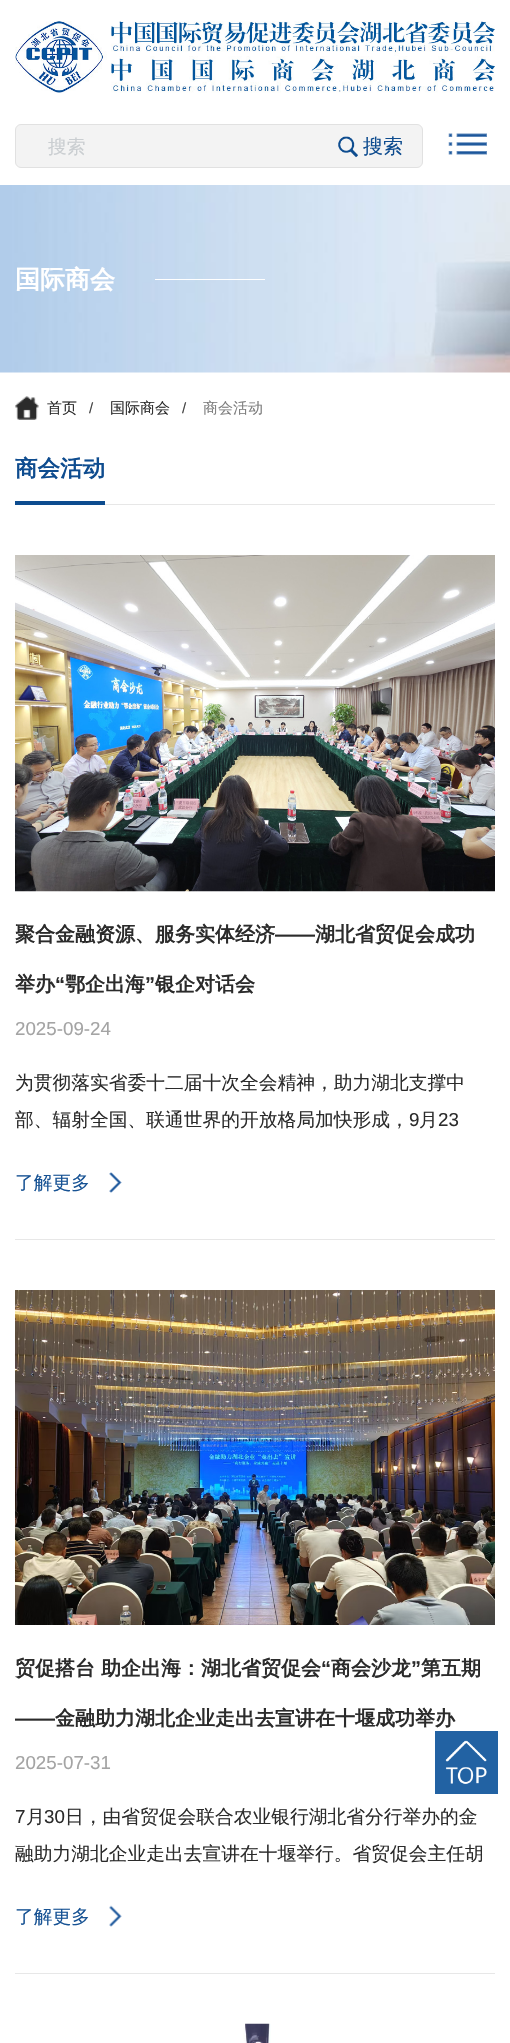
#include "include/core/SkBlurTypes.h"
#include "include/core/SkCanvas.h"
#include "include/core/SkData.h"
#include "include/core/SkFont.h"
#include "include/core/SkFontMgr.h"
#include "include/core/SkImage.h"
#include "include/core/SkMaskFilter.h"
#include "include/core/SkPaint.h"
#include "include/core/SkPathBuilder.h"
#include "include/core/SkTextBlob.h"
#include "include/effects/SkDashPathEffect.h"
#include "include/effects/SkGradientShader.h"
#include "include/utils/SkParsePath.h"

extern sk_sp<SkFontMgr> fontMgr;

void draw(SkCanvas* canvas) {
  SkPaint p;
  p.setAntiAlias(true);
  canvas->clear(SK_ColorWHITE);
  canvas->drawImageRect(SkImages::DeferredFromEncodedData(SkData::MakeFromFileName("images/1.png")), SkRect::MakeLTRB(15, 21, 495, 93), SkSamplingOptions());
  p.setColor(SkColorSetRGB(243, 243, 243));
  canvas->drawRoundRect(SkRect::MakeLTRB(15.5f, 124.5f, 422.5f, 167.5f), 5.5f, 5.5f, p);
  p.setStyle(SkPaint::kStroke_Style);
  p.setStrokeWidth(1);
  p.setColor(SkColorSetRGB(225, 225, 225));
  canvas->drawRoundRect(SkRect::MakeLTRB(15.5f, 124.5f, 422.5f, 167.5f), 5.5f, 5.5f, p);
  canvas->drawImageRect(SkImages::DeferredFromEncodedData(SkData::MakeFromFileName("images/2.png")), SkRect::MakeLTRB(338, 136, 358, 158), SkSamplingOptions());
  canvas->drawImageRect(SkImages::DeferredFromEncodedData(SkData::MakeFromFileName("images/3.png")), SkRect::MakeLTRB(448, 133, 487, 155), SkSamplingOptions());
  canvas->drawImageRect(SkImages::DeferredFromEncodedData(SkData::MakeFromFileName("images/4.png")), SkRect::MakeLTRB(0, 185, 510, 373), SkSamplingOptions());
  p.setStyle(SkPaint::kFill_Style);
  p.setColor(SK_ColorWHITE);
  canvas->drawRect(SkRect::MakeLTRB(155, 279, 265, 280), p);
  canvas->drawImageRect(SkImages::DeferredFromEncodedData(SkData::MakeFromFileName("images/5.png")), SkRect::MakeLTRB(15, 396, 39, 420), SkSamplingOptions());
  p.setColor(SkColorSetRGB(231, 231, 231));
  canvas->drawRect(SkRect::MakeLTRB(105, 504, 495, 505), p);
  p.setColor(SkColorSetRGB(13, 76, 143));
  canvas->drawRect(SkRect::MakeLTRB(15, 501, 105, 505), p);
  canvas->drawImageRect(SkImages::DeferredFromEncodedData(SkData::MakeFromFileName("images/6.png")), SkRect::MakeLTRB(15, 555, 495, 892), SkSamplingOptions());
  canvas->drawImageRect(SkImages::DeferredFromEncodedData(SkData::MakeFromFileName("images/7.png")), SkRect::MakeLTRB(109, 1172, 122, 1193), SkSamplingOptions());
  p.setColor(SkColorSetRGB(231, 231, 231));
  canvas->drawRect(SkRect::MakeLTRB(15, 1239, 495, 1240), p);
  canvas->drawImageRect(SkImages::DeferredFromEncodedData(SkData::MakeFromFileName("images/8.png")), SkRect::MakeLTRB(15, 1290, 495, 1625), SkSamplingOptions());
  canvas->drawImageRect(SkImages::DeferredFromEncodedData(SkData::MakeFromFileName("images/9.png")), SkRect::MakeLTRB(109, 1905, 122, 1927), SkSamplingOptions());
  canvas->drawRect(SkRect::MakeLTRB(15, 1973, 495, 1974), p);
  canvas->drawImageRect(SkImages::DeferredFromEncodedData(SkData::MakeFromFileName("images/10.png")), SkRect::MakeLTRB(243, 2023, 271, 2043), SkSamplingOptions());
  p.setColor(SkColorSetRGB(34, 98, 163));
  canvas->drawRect(SkRect::MakeLTRB(435, 1731, 498, 1794), p);
  canvas->drawImageRect(SkImages::DeferredFromEncodedData(SkData::MakeFromFileName("images/11.png")), SkRect::MakeLTRB(445, 1740, 487, 1784), SkSamplingOptions());
  SkFont font1(fontMgr->matchFamilyStyle("WenQuanYi Zen Hei", SkFontStyle(500, SkFontStyle::kNormal_Width, SkFontStyle::kUpright_Slant)), 18.75f);
  font1.setSubpixel(true);
  p.setColor(SkColorSetRGB(202, 206, 209));
  canvas->drawString("搜索", 48, 153, font1, p);
  SkFont font2(fontMgr->matchFamilyStyle("WenQuanYi Zen Hei", SkFontStyle(500, SkFontStyle::kNormal_Width, SkFontStyle::kUpright_Slant)), 20);
  font2.setSubpixel(true);
  p.setColor(SkColorSetRGB(14, 76, 143));
  canvas->drawString("搜索", 363, 153, font2, p);
  SkFont font3(fontMgr->matchFamilyStyle("WenQuanYi Zen Hei", SkFontStyle::Bold()), 25);
  font3.setSubpixel(true);
  p.setColor(SK_ColorWHITE);
  canvas->drawString("国际商会", 15, 288, font3, p);
  SkFont font4(fontMgr->matchFamilyStyle("WenQuanYi Zen Hei", SkFontStyle(500, SkFontStyle::kNormal_Width, SkFontStyle::kUpright_Slant)), 15);
  font4.setSubpixel(true);
  p.setColor(SkColorSetRGB(43, 43, 43));
  canvas->drawString("首页", 47, 413, font4, p);
  SkFont font5(fontMgr->matchFamilyStyle("Liberation Sans", SkFontStyle::Normal()), 15);
  font5.setSubpixel(true);
  p.setColor(SkColorSetRGB(68, 68, 68));
  canvas->drawString("/", 89, 413, font5, p);
  p.setColor(SkColorSetRGB(43, 43, 43));
  canvas->drawString("国际商会", 110, 413, font4, p);
  p.setColor(SkColorSetRGB(68, 68, 68));
  canvas->drawString("/", 182, 413, font5, p);
  p.setColor(SkColorSetRGB(125, 125, 125));
  canvas->drawString("商会活动", 203, 413, font4, p);
  SkFont font6(fontMgr->matchFamilyStyle("WenQuanYi Zen Hei", SkFontStyle::Bold()), 22.5f);
  font6.setSubpixel(true);
  p.setColor(SkColorSetRGB(14, 76, 143));
  canvas->drawString("商会活动", 15, 476, font6, p);
  SkFont font7(fontMgr->matchFamilyStyle("WenQuanYi Zen Hei", SkFontStyle::Bold()), 20);
  font7.setSubpixel(true);
  p.setColor(SkColorSetRGB(43, 43, 43));
  canvas->drawString("聚合金融资源、服务实体经济", 15, 941, font7, p);
  SkFont font8(fontMgr->matchFamilyStyle("Liberation Sans", SkFontStyle::Bold()), 20);
  font8.setSubpixel(true);
  canvas->drawString("——", 275, 941, font8, p);
  canvas->drawString("湖北省贸促会成功", 315, 941, font7, p);
  canvas->drawString("举办", 15, 991, font7, p);
  canvas->drawString("“", 55, 991, font8, p);
  canvas->drawString("鄂企出海", 65, 991, font7, p);
  canvas->drawString("”", 145, 991, font8, p);
  canvas->drawString("银企对话会", 155, 991, font7, p);
  SkFont font9(fontMgr->matchFamilyStyle("Liberation Sans", SkFontStyle::Normal()), 18.75f);
  font9.setSubpixel(true);
  p.setColor(SkColorSetRGB(164, 164, 164));
  canvas->drawString("2025-09-24", 15, 1035, font9, p);
  p.setColor(SkColorSetRGB(43, 43, 43));
  canvas->drawString("为贯彻落实省委十二届十次全会精神，助力湖北支撑中", 15, 1089, font1, p);
  canvas->drawString("部、辐射全国、联通世界的开放格局加快形成，", 15, 1126, font1, p);
  canvas->drawString("9", 409, 1126, font9, p);
  canvas->drawString("月", 419, 1126, font1, p);
  canvas->drawString("23", 438, 1126, font9, p);
  p.setColor(SkColorSetRGB(24, 83, 148));
  canvas->drawString("了解更多", 15, 1189, font1, p);
  p.setColor(SkColorSetRGB(43, 43, 43));
  canvas->drawString("贸促搭台 助企出海：湖北省贸促会", 15, 1675, font7, p);
  canvas->drawString("“", 321, 1675, font8, p);
  canvas->drawString("商会沙龙", 331, 1675, font7, p);
  canvas->drawString("”", 411, 1675, font8, p);
  canvas->drawString("第五期", 421, 1675, font7, p);
  canvas->drawString("——", 15, 1725, font8, p);
  canvas->drawString("金融助力湖北企业走出去宣讲在十堰成功举办", 55, 1725, font7, p);
  p.setColor(SkColorSetRGB(164, 164, 164));
  canvas->drawString("2025-07-31", 15, 1769, font9, p);
  p.setColor(SkColorSetRGB(43, 43, 43));
  canvas->drawString("7", 15, 1823, font9, p);
  canvas->drawString("月", 26, 1823, font1, p);
  canvas->drawString("30", 44, 1823, font9, p);
  canvas->drawString("日，由省贸促会联合农业银行湖北省分行举办的金", 65, 1823, font1, p);
  canvas->drawString("融助力湖北企业走出去宣讲在十堰举行。省贸促会主任胡", 15, 1860, font1, p);
  p.setColor(SkColorSetRGB(24, 83, 148));
  canvas->drawString("了解更多", 15, 1923, font1, p);
}
